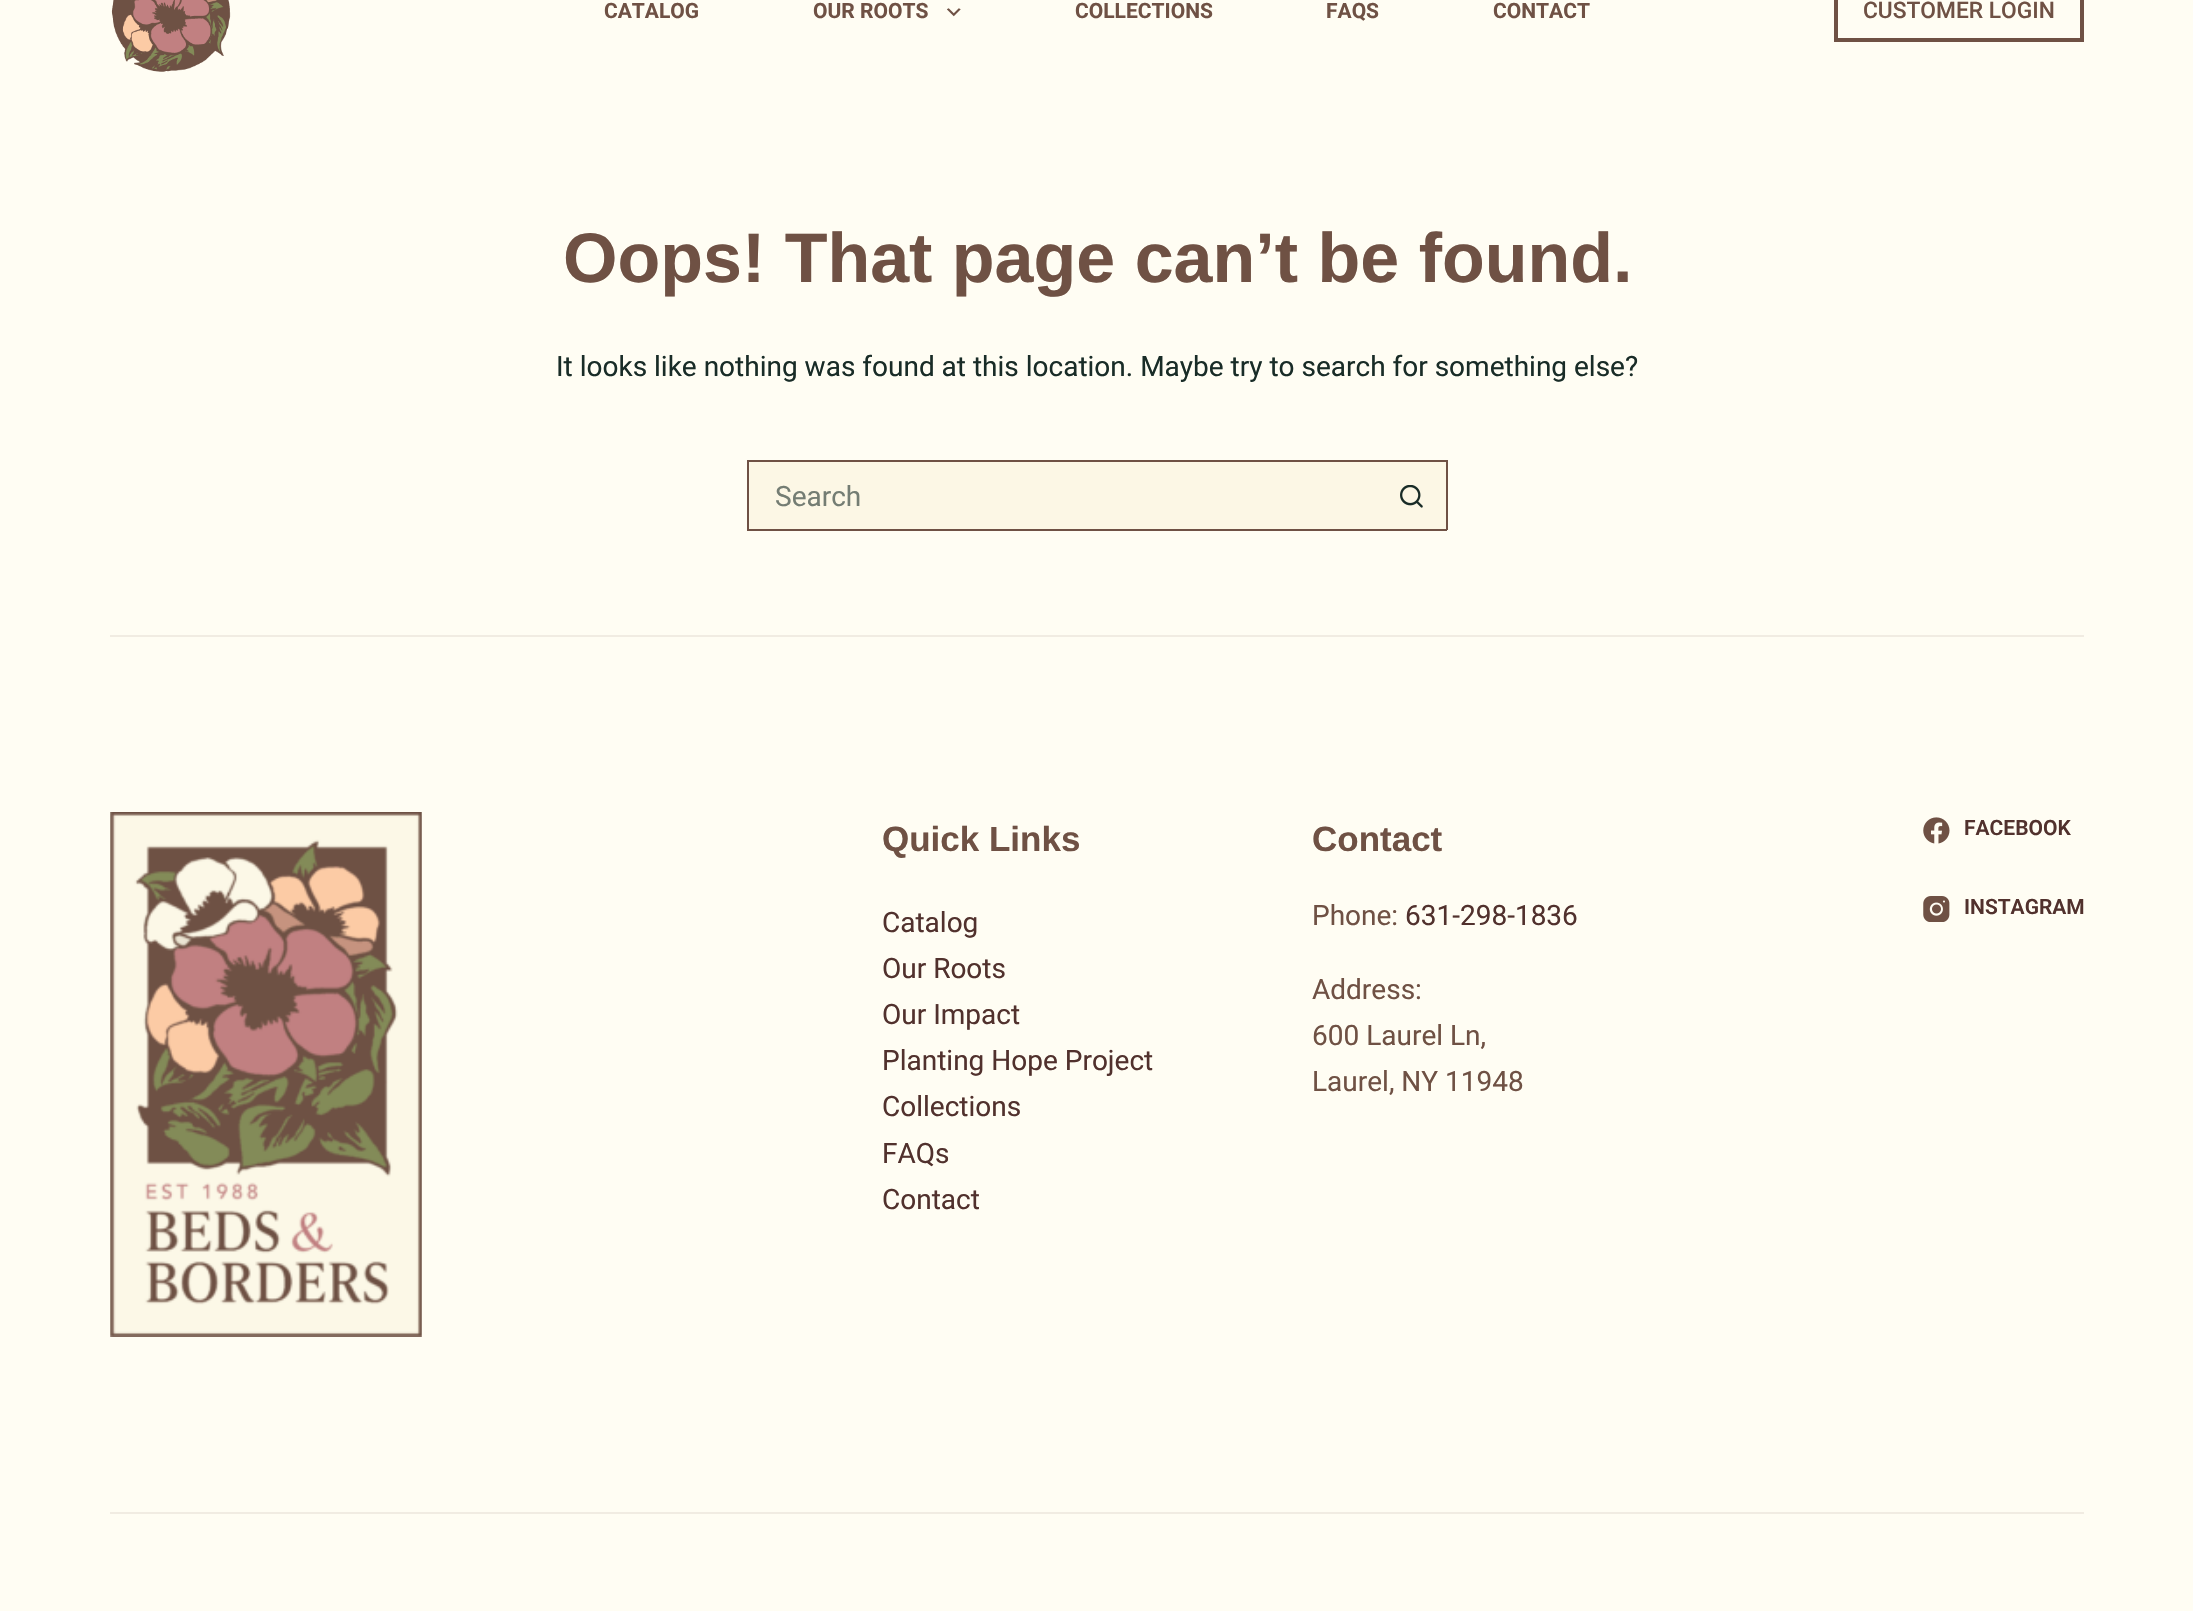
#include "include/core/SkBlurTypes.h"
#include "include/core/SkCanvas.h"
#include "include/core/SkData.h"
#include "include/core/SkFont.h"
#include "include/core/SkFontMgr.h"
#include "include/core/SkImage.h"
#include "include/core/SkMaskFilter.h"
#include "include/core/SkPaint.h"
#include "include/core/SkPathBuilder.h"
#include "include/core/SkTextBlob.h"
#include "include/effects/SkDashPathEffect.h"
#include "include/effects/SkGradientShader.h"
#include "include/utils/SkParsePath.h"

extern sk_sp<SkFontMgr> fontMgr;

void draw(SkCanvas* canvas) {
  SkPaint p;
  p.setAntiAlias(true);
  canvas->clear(SkColorSetRGB(255, 253, 243));
  canvas->drawImageRect(SkImages::DeferredFromEncodedData(SkData::MakeFromFileName("images/1.png")), SkRect::MakeLTRB(111, 0, 231, 72), SkSamplingOptions());
  canvas->drawImageRect(SkImages::DeferredFromEncodedData(SkData::MakeFromFileName("images/2.png")), SkRect::MakeLTRB(947, 8, 961, 17), SkSamplingOptions());
  p.setStyle(SkPaint::kStroke_Style);
  p.setStrokeWidth(4);
  p.setColor(SkColorSetRGB(111, 81, 68));
  canvas->drawRect(SkRect::MakeLTRB(1836, -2, 2082, 40), p);
  p.setStyle(SkPaint::kFill_Style);
  p.setColor(SkColorSetRGB(252, 247, 229));
  canvas->drawRect(SkRect::MakeLTRB(749, 462, 1446, 529), p);
  p.setColor(SkColorSetRGB(111, 81, 68));
  canvas->drawRect(SkRect::MakeLTRB(747, 460, 1447, 462), p);
  canvas->drawRect(SkRect::MakeLTRB(747, 529, 1377, 531), p);
  canvas->drawRect(SkRect::MakeLTRB(747, 460, 749, 530), p);
  canvas->drawRect(SkRect::MakeLTRB(1446, 460, 1448, 530), p);
  canvas->drawRect(SkRect::MakeLTRB(1377, 529, 1447, 531), p);
  canvas->drawImageRect(SkImages::DeferredFromEncodedData(SkData::MakeFromFileName("images/3.png")), SkRect::MakeLTRB(1400, 485, 1423, 508), SkSamplingOptions());
  p.setColor(SkColorSetRGB(241, 236, 226));
  canvas->drawRect(SkRect::MakeLTRB(110, 635, 2084, 637), p);
  canvas->drawImageRect(SkImages::DeferredFromEncodedData(SkData::MakeFromFileName("images/4.png")), SkRect::MakeLTRB(110, 812, 422, 1337), SkSamplingOptions());
  canvas->drawImageRect(SkImages::DeferredFromEncodedData(SkData::MakeFromFileName("images/5.png")), SkRect::MakeLTRB(1923, 817, 1950, 844), SkSamplingOptions());
  canvas->drawImageRect(SkImages::DeferredFromEncodedData(SkData::MakeFromFileName("images/6.png")), SkRect::MakeLTRB(1923, 896, 1950, 922), SkSamplingOptions());
  canvas->drawRect(SkRect::MakeLTRB(110, 1512, 2084, 1514), p);
  SkFont font1(fontMgr->matchFamilyStyle("Roboto", SkFontStyle::Bold()), 21);
  font1.setSubpixel(true);
  p.setColor(SkColorSetRGB(111, 81, 68));
  canvas->drawString("CATALOG", 604, 18, font1, p);
  canvas->drawString("OUR ROOTS", 813, 18, font1, p);
  canvas->drawString("COLLECTIONS", 1075, 18, font1, p);
  canvas->drawString("FAQS", 1326, 18, font1, p);
  canvas->drawString("CONTACT", 1493, 18, font1, p);
  SkFont font2(fontMgr->matchFamilyStyle("Roboto", SkFontStyle(500, SkFontStyle::kNormal_Width, SkFontStyle::kUpright_Slant)), 22.75f);
  font2.setSubpixel(true);
  canvas->drawString("CUSTOMER LOGIN", 1863, 18, font2, p);
  SkFont font3(fontMgr->matchFamilyStyle("Liberation Sans", SkFontStyle::Bold()), 70);
  font3.setSubpixel(true);
  canvas->drawString("Oops! That page can’t be found.", 563, 282, font3, p);
  SkFont font4(fontMgr->matchFamilyStyle("Roboto", SkFontStyle::Normal()), 28);
  font4.setSubpixel(true);
  p.setColor(SkColorSetRGB(25, 44, 39));
  canvas->drawString("It looks like nothing was found at this location. Maybe try to search for something else?", 556, 376, font4, p);
  p.setColor(SkColorSetRGB(116, 125, 115));
  canvas->drawString("Search", 775, 506, font4, p);
  SkFont font5(fontMgr->matchFamilyStyle("Liberation Sans", SkFontStyle::Bold()), 35);
  font5.setSubpixel(true);
  p.setColor(SkColorSetRGB(111, 81, 68));
  canvas->drawString("Quick Links", 882, 851, font5, p);
  p.setColor(SkColorSetRGB(81, 49, 45));
  canvas->drawString("Catalog", 882, 932, font4, p);
  canvas->drawString("Our Roots", 882, 978, font4, p);
  canvas->drawString("Our Impact", 882, 1024, font4, p);
  canvas->drawString("Planting Hope Project", 882, 1070, font4, p);
  canvas->drawString("Collections", 882, 1116, font4, p);
  canvas->drawString("FAQs", 882, 1163, font4, p);
  canvas->drawString("Contact", 882, 1209, font4, p);
  p.setColor(SkColorSetRGB(111, 81, 68));
  canvas->drawString("Contact", 1312, 851, font5, p);
  canvas->drawString("Phone:", 1312, 925, font4, p);
  p.setColor(SkColorSetRGB(81, 49, 45));
  canvas->drawString("631-298-1836", 1405, 925, font4, p);
  p.setColor(SkColorSetRGB(111, 81, 68));
  canvas->drawString("Address:", 1312, 999, font4, p);
  canvas->drawString("600 Laurel Ln,", 1312, 1045, font4, p);
  canvas->drawString("Laurel, NY 11948", 1312, 1091, font4, p);
  SkFont font6(fontMgr->matchFamilyStyle("Roboto", SkFontStyle(600, SkFontStyle::kNormal_Width, SkFontStyle::kUpright_Slant)), 21);
  font6.setSubpixel(true);
  p.setColor(SkColorSetRGB(81, 49, 45));
  canvas->drawString("FACEBOOK", 1964, 835, font6, p);
  canvas->drawString("INSTAGRAM", 1964, 914, font6, p);
}
